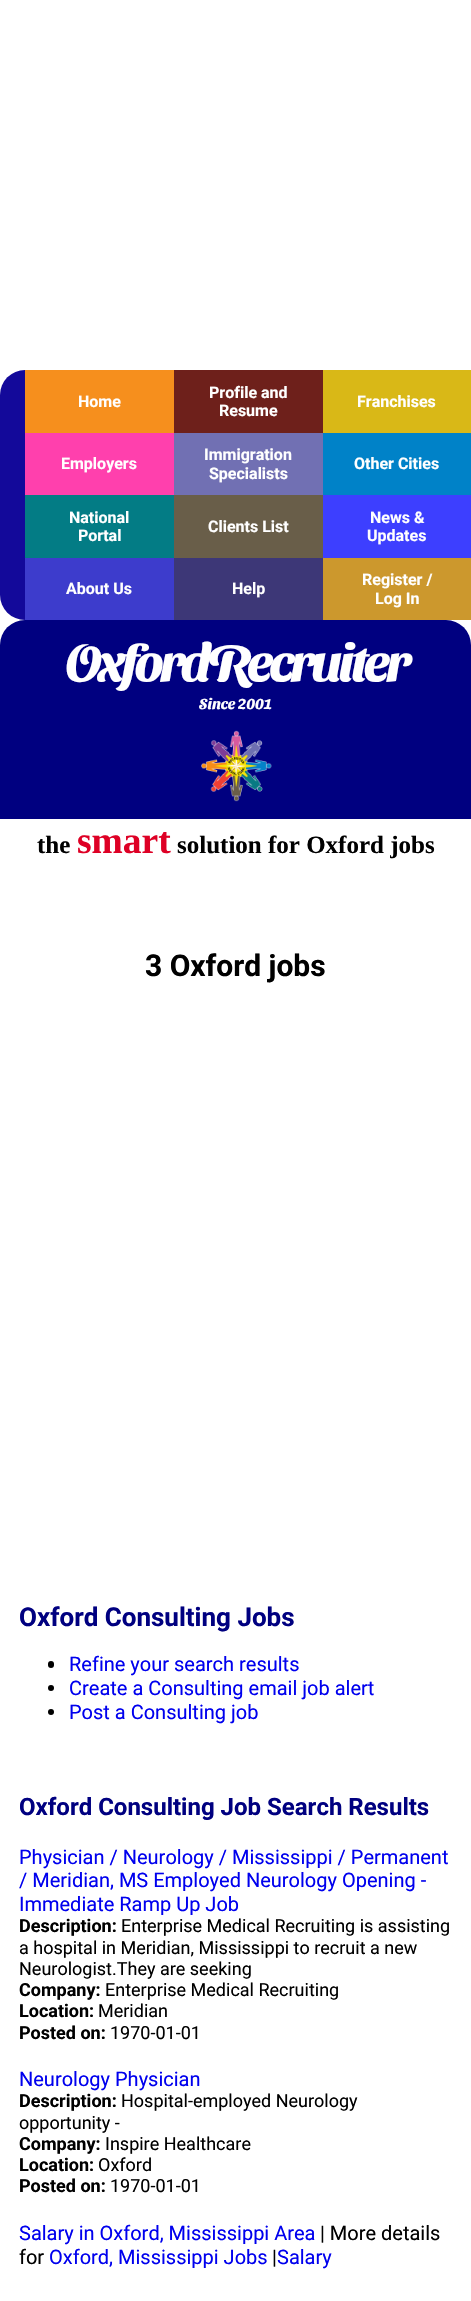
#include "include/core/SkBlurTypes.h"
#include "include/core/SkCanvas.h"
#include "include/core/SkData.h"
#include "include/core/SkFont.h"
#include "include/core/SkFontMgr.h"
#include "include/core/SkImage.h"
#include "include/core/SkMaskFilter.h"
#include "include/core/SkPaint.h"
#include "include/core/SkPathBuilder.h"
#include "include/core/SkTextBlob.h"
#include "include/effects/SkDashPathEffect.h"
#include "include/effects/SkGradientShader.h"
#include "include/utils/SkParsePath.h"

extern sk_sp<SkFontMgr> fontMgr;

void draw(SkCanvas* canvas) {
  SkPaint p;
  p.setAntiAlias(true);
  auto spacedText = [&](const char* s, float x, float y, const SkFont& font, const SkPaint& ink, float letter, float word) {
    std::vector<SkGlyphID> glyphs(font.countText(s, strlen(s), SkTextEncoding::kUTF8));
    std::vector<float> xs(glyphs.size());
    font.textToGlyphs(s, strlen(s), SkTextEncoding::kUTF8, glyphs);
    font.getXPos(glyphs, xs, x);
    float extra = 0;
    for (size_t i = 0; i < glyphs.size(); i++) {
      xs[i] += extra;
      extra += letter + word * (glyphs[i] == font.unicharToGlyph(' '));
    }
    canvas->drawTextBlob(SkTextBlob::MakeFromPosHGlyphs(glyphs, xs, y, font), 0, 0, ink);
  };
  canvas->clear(SK_ColorWHITE);
  p.setColor(SkColorSetRGB(19, 9, 154));
  canvas->drawRoundRect(SkRect::MakeLTRB(0, 370, 471, 620), 25, 25, p);
  p.setColor(SkColorSetRGB(246, 143, 29));
  canvas->drawRect(SkRect::MakeLTRB(25, 370, 174, 433), p);
  p.setColor(SkColorSetRGB(110, 32, 27));
  canvas->drawRect(SkRect::MakeLTRB(174, 370, 323, 433), p);
  p.setColor(SkColorSetRGB(217, 184, 23));
  canvas->drawRect(SkRect::MakeLTRB(323, 370, 471, 433), p);
  p.setColor(SkColorSetRGB(255, 64, 173));
  canvas->drawRect(SkRect::MakeLTRB(25, 433, 174, 495), p);
  p.setColor(SkColorSetRGB(113, 112, 179));
  canvas->drawRect(SkRect::MakeLTRB(174, 433, 323, 495), p);
  p.setColor(SkColorSetRGB(0, 130, 200));
  canvas->drawRect(SkRect::MakeLTRB(323, 433, 471, 495), p);
  p.setColor(SkColorSetRGB(3, 124, 133));
  canvas->drawRect(SkRect::MakeLTRB(25, 495, 174, 558), p);
  p.setColor(SkColorSetRGB(105, 94, 73));
  canvas->drawRect(SkRect::MakeLTRB(174, 495, 323, 558), p);
  p.setColor(SkColorSetRGB(61, 63, 255));
  canvas->drawRect(SkRect::MakeLTRB(323, 495, 471, 558), p);
  p.setColor(SkColorSetRGB(61, 60, 204));
  canvas->drawRect(SkRect::MakeLTRB(25, 558, 174, 620), p);
  p.setColor(SkColorSetRGB(61, 55, 119));
  canvas->drawRect(SkRect::MakeLTRB(174, 558, 323, 620), p);
  p.setColor(SkColorSetRGB(204, 152, 45));
  canvas->drawRect(SkRect::MakeLTRB(323, 558, 471, 620), p);
  p.setColor(SkColorSetRGB(0, 0, 128));
  canvas->drawRoundRect(SkRect::MakeLTRB(0, 620, 471, 861), 25, 25, p);
  canvas->drawImageRect(SkImages::DeferredFromEncodedData(SkData::MakeFromFileName("images/1.png")), SkRect::MakeLTRB(201, 730, 272, 802), SkSamplingOptions());
  p.setColor(SK_ColorWHITE);
  canvas->drawRect(SkRect::MakeLTRB(0, 819, 471, 861), p);
  p.setColor(SK_ColorBLACK);
  canvas->drawRoundRect(SkRect::MakeLTRB(48, 1661, 54, 1668), 3, 3, p);
  canvas->drawCircle(51, 1688, 3, p);
  canvas->drawCircle(51, 1712, 3, p);
  SkFont font1(fontMgr->matchFamilyStyle("Roboto", SkFontStyle::Bold()), 16);
  font1.setSubpixel(true);
  p.setColor(SK_ColorWHITE);
  canvas->drawString("Home", 78, 407, font1, p);
  canvas->drawString("Profile and", 209, 398, font1, p);
  canvas->drawString("Resume", 219, 416, font1, p);
  canvas->drawString("Franchises", 357, 407, font1, p);
  canvas->drawString("Employers", 61, 469, font1, p);
  canvas->drawString("Immigration", 204, 460, font1, p);
  canvas->drawString("Specialists", 209, 479, font1, p);
  canvas->drawString("Other Cities", 354, 469, font1, p);
  canvas->drawString("National", 69, 523, font1, p);
  canvas->drawString("Portal", 78, 541, font1, p);
  canvas->drawString("Clients List", 208, 532, font1, p);
  canvas->drawString("News &", 370, 523, font1, p);
  canvas->drawString("Updates", 367, 541, font1, p);
  canvas->drawString("About Us", 66, 594, font1, p);
  canvas->drawString("Help", 232, 594, font1, p);
  canvas->drawString("Register /", 362, 585, font1, p);
  canvas->drawString("Log In", 375, 604, font1, p);
  SkFont font2(fontMgr->matchFamilyStyle("Sansita Swashed", SkFontStyle::Bold()), 52.5f);
  font2.setSubpixel(true);
  spacedText("OxfordRecruiter", 65, 681, font2, p, -3.75f, 0);
  SkFont font3(fontMgr->matchFamilyStyle("Sansita Swashed", SkFontStyle::Bold()), 15);
  font3.setSubpixel(true);
  canvas->drawString("Since 2001", 199, 709, font3, p);
  SkFont font4(fontMgr->matchFamilyStyle("Liberation Serif", SkFontStyle::Bold()), 25);
  font4.setSubpixel(true);
  p.setColor(SK_ColorBLACK);
  canvas->drawString("the", 37, 853, font4, p);
  SkFont font5(fontMgr->matchFamilyStyle("Liberation Serif", SkFontStyle::Bold()), 37.5f);
  font5.setSubpixel(true);
  p.setColor(SkColorSetRGB(222, 0, 37));
  canvas->drawString("smart", 77, 853, font5, p);
  p.setColor(SK_ColorBLACK);
  canvas->drawString("solution for Oxford jobs", 177, 853, font4, p);
  SkFont font6(fontMgr->matchFamilyStyle("Roboto", SkFontStyle::Bold()), 30);
  font6.setSubpixel(true);
  canvas->drawString("3 Oxford jobs", 145, 976, font6, p);
  SkFont font7(fontMgr->matchFamilyStyle("Roboto", SkFontStyle::Bold()), 26);
  font7.setSubpixel(true);
  p.setColor(SkColorSetRGB(0, 0, 128));
  canvas->drawString("Oxford Consulting Jobs", 19, 1626, font7, p);
  SkFont font8(fontMgr->matchFamilyStyle("Roboto", SkFontStyle::Normal()), 20);
  font8.setSubpixel(true);
  p.setColor(SkColorSetRGB(0, 0, 238));
  canvas->drawString("Refine your search results", 69, 1671, font8, p);
  canvas->drawString("Create a Consulting email job alert", 69, 1695, font8, p);
  canvas->drawString("Post a Consulting job", 69, 1719, font8, p);
  SkFont font9(fontMgr->matchFamilyStyle("Roboto", SkFontStyle::Bold()), 24);
  font9.setSubpixel(true);
  p.setColor(SkColorSetRGB(0, 0, 128));
  canvas->drawString("Oxford Consulting Job Search Results", 19, 1815, font9, p);
  p.setColor(SkColorSetRGB(0, 0, 238));
  canvas->drawString("Physician / Neurology / Mississippi / Permanent", 19, 1864, font8, p);
  canvas->drawString("/ Meridian, MS Employed Neurology Opening -", 19, 1887, font8, p);
  canvas->drawString("Immediate Ramp Up Job", 19, 1911, font8, p);
  SkFont font10(fontMgr->matchFamilyStyle("Roboto", SkFontStyle::Bold()), 18);
  font10.setSubpixel(true);
  p.setColor(SK_ColorBLACK);
  canvas->drawString("Description:", 19, 1932, font10, p);
  SkFont font11(fontMgr->matchFamilyStyle("Roboto", SkFontStyle::Normal()), 18);
  font11.setSubpixel(true);
  canvas->drawString("Enterprise Medical Recruiting is assisting", 121, 1932, font11, p);
  canvas->drawString("a hospital in Meridian, Mississippi to recruit a new", 19, 1954, font11, p);
  canvas->drawString("Neurologist.They are seeking", 19, 1975, font11, p);
  canvas->drawString("Company:", 19, 1996, font10, p);
  canvas->drawString("Enterprise Medical Recruiting", 105, 1996, font11, p);
  canvas->drawString("Location:", 19, 2017, font10, p);
  canvas->drawString("Meridian", 98, 2017, font11, p);
  canvas->drawString("Posted on:", 19, 2039, font10, p);
  canvas->drawString("1970-01-01", 110, 2039, font11, p);
  p.setColor(SkColorSetRGB(0, 0, 238));
  canvas->drawString("Neurology Physician", 19, 2086, font8, p);
  p.setColor(SK_ColorBLACK);
  canvas->drawString("Description:", 19, 2107, font10, p);
  canvas->drawString("Hospital-employed Neurology", 121, 2107, font11, p);
  canvas->drawString("opportunity -", 19, 2129, font11, p);
  canvas->drawString("Company:", 19, 2150, font10, p);
  canvas->drawString("Inspire Healthcare", 105, 2150, font11, p);
  canvas->drawString("Location:", 19, 2171, font10, p);
  canvas->drawString("Oxford", 98, 2171, font11, p);
  canvas->drawString("Posted on:", 19, 2192, font10, p);
  canvas->drawString("1970-01-01", 110, 2192, font11, p);
  p.setColor(SkColorSetRGB(0, 0, 238));
  canvas->drawString("Salary in Oxford, Mississippi Area", 19, 2240, font8, p);
  p.setColor(SK_ColorBLACK);
  canvas->drawString("| More details", 320, 2240, font8, p);
  canvas->drawString("for", 19, 2264, font8, p);
  p.setColor(SkColorSetRGB(0, 0, 238));
  canvas->drawString("Oxford, Mississippi Jobs", 49, 2264, font8, p);
  p.setColor(SK_ColorBLACK);
  canvas->drawString("|", 272, 2264, font8, p);
  p.setColor(SkColorSetRGB(0, 0, 238));
  canvas->drawString("Salary", 277, 2264, font8, p);
}
